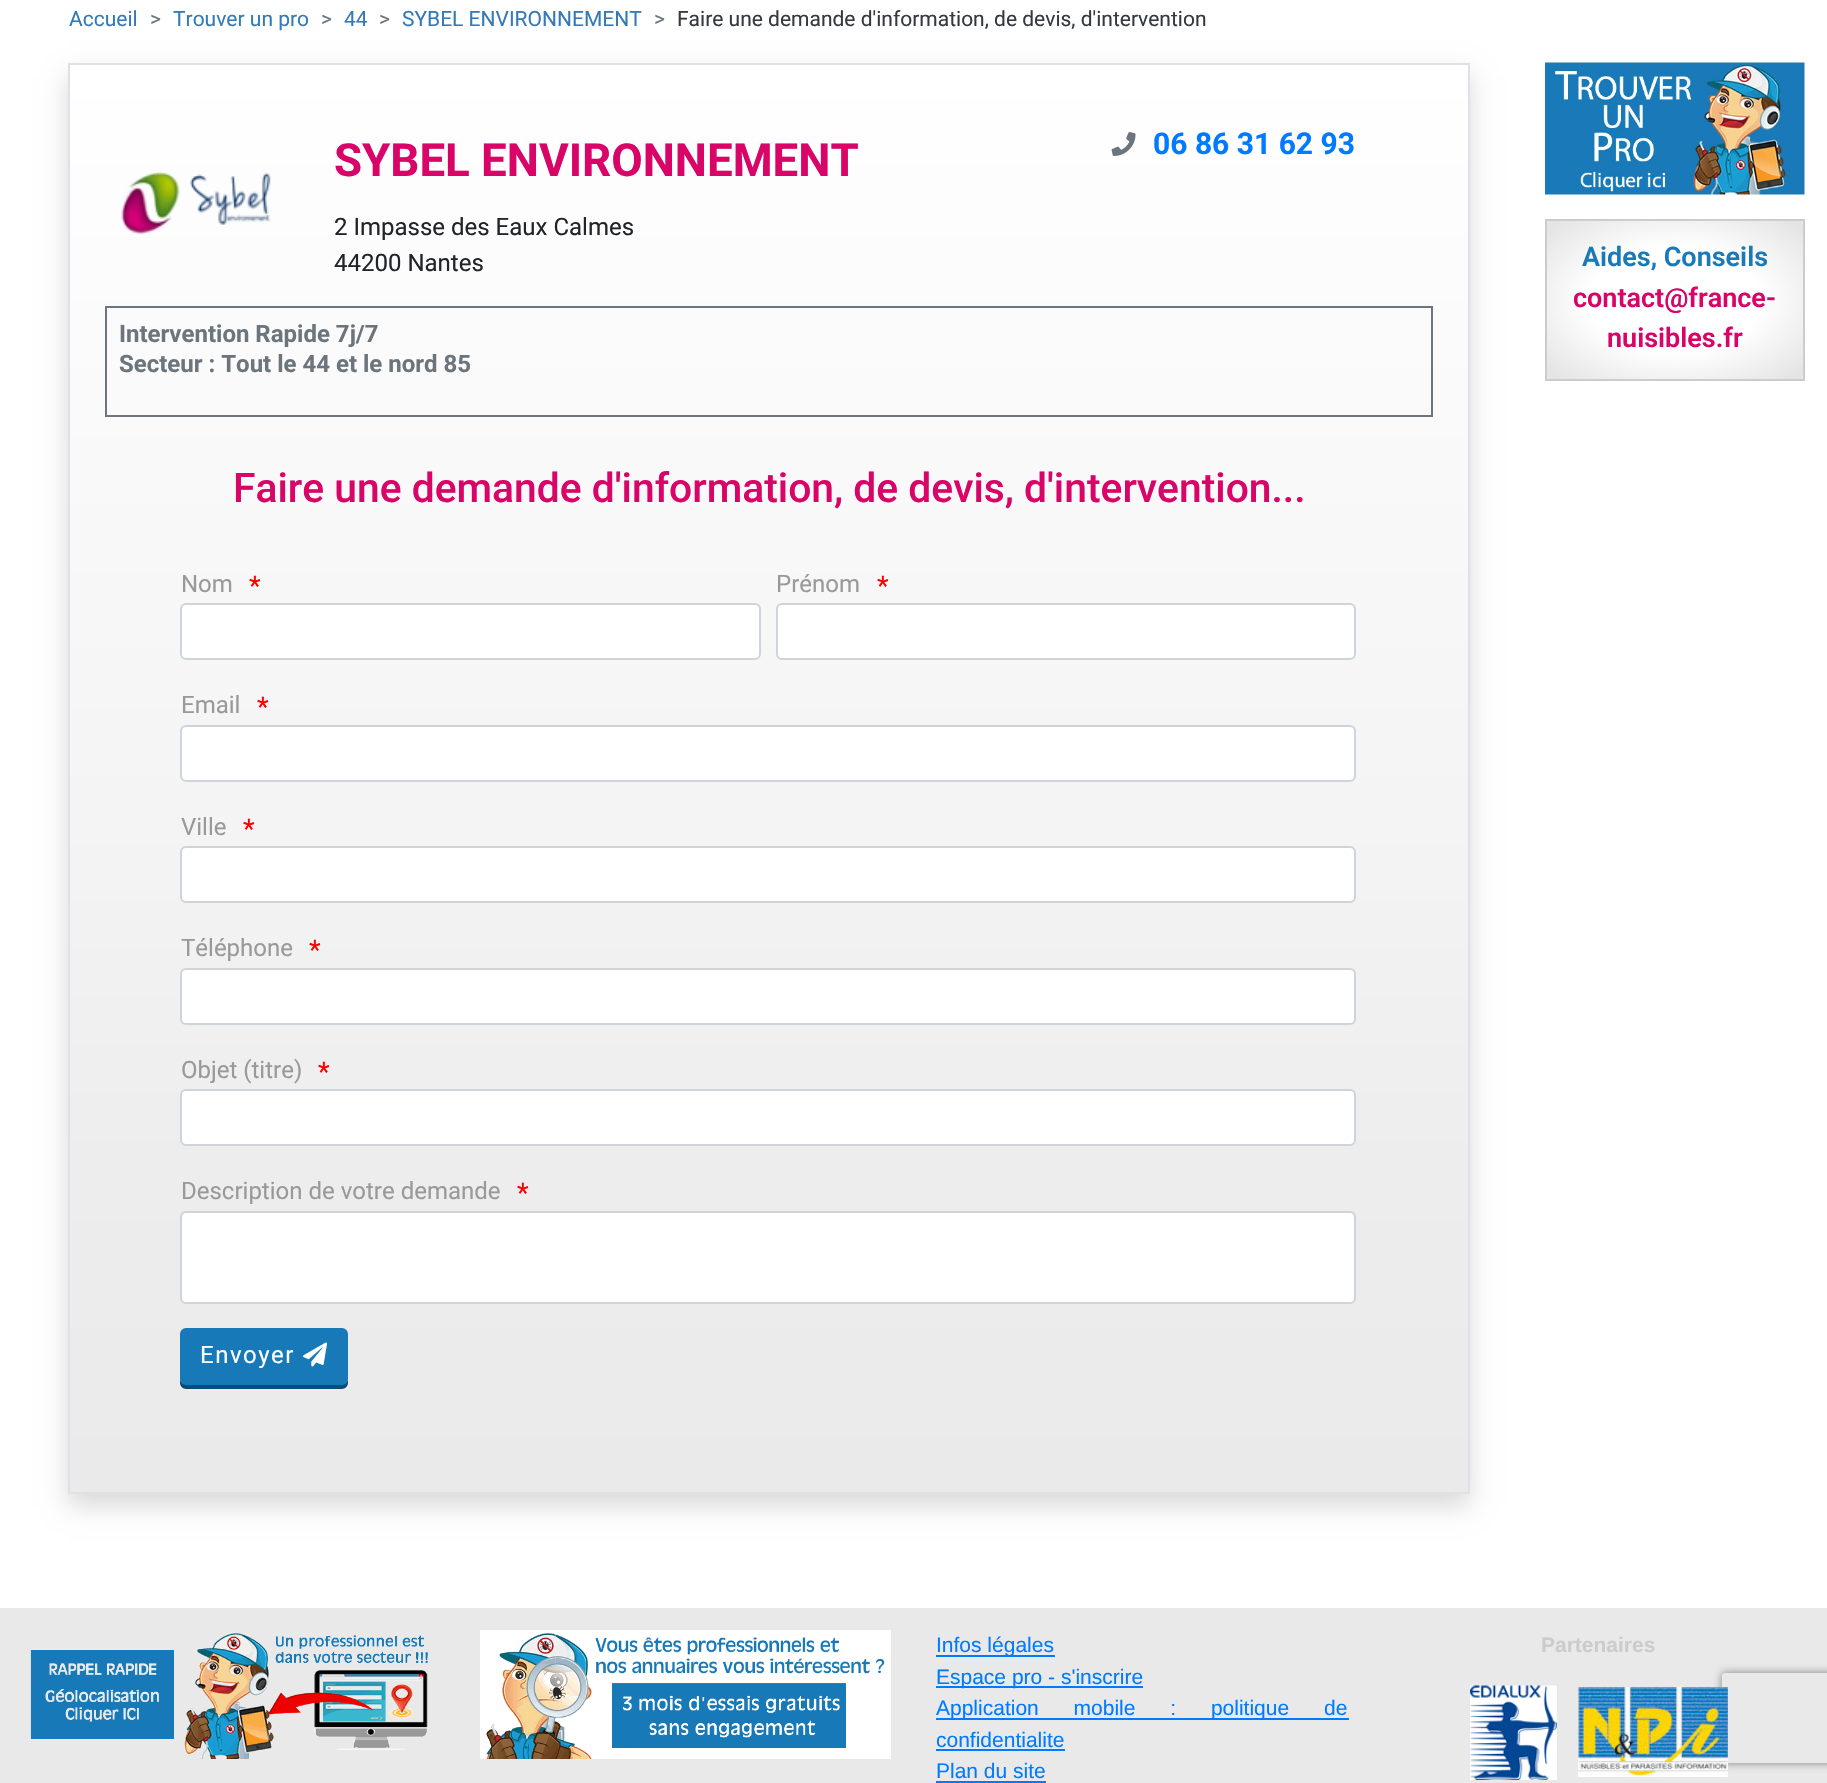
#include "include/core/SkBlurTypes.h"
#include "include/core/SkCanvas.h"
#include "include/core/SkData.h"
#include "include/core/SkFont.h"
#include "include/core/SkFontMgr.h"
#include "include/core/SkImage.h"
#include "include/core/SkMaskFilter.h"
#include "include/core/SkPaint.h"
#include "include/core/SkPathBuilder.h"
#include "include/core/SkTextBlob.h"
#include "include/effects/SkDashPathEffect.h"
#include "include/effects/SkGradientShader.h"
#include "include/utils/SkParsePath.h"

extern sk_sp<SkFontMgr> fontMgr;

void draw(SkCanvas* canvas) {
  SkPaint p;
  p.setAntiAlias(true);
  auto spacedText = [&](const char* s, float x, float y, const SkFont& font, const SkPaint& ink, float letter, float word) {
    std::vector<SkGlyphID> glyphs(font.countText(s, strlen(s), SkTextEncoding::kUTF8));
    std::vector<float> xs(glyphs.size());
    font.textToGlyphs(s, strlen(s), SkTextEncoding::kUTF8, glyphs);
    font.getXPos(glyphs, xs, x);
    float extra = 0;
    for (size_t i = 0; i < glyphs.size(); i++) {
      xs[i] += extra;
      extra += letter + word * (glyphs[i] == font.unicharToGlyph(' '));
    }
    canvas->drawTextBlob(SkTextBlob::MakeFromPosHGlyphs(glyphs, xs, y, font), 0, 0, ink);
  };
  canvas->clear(SK_ColorWHITE);
  p.setColor(SkColorSetARGB(38, 0, 0, 0));
  p.setMaskFilter(SkMaskFilter::MakeBlur(kNormal_SkBlurStyle, 12));
  canvas->drawRect(SkRect::MakeLTRB(68, 75, 1470, 1506), p);
  p.setMaskFilter(nullptr);
  {
    const SkColor colors[] = {SK_ColorWHITE, SkColorSetRGB(243, 243, 243), SkColorSetRGB(237, 237, 237), SkColorSetRGB(234, 234, 234)};
    const float stops[] = {0, 0.57f, 0.77f, 1};
    const SkPoint ends[] = {{769, 64}, {769, 1493}};
    p.setShader(SkGradientShader::MakeLinear(ends, colors, stops, 4, SkTileMode::kClamp));
    p.setAlpha(255);
  }
  canvas->drawRect(SkRect::MakeLTRB(70, 65, 1468, 1492), p);
  p.setStyle(SkPaint::kStroke_Style);
  p.setStrokeWidth(2);
  p.setShader(nullptr);
  p.setColor(SkColorSetRGB(222, 226, 230));
  canvas->drawRect(SkRect::MakeLTRB(69, 64, 1469, 1493), p);
  canvas->drawImageRect(SkImages::DeferredFromEncodedData(SkData::MakeFromFileName("images/1.png")), SkRect::MakeLTRB(121, 171, 271, 235), SkSamplingOptions());
  canvas->drawImageRect(SkImages::DeferredFromEncodedData(SkData::MakeFromFileName("images/2.png")), SkRect::MakeLTRB(1111, 132, 1136, 156), SkSamplingOptions());
  p.setColor(SkColorSetRGB(108, 117, 125));
  canvas->drawRect(SkRect::MakeLTRB(106, 307, 1432, 416), p);
  p.setStyle(SkPaint::kFill_Style);
  p.setColor(SK_ColorWHITE);
  canvas->drawRoundRect(SkRect::MakeLTRB(181, 604, 760, 659), 5, 5, p);
  p.setStyle(SkPaint::kStroke_Style);
  p.setColor(SkColorSetRGB(206, 212, 218));
  canvas->drawRoundRect(SkRect::MakeLTRB(181, 604, 760, 659), 5, 5, p);
  p.setStyle(SkPaint::kFill_Style);
  p.setColor(SK_ColorWHITE);
  canvas->drawRoundRect(SkRect::MakeLTRB(777, 604, 1355, 659), 5, 5, p);
  p.setStyle(SkPaint::kStroke_Style);
  p.setColor(SkColorSetRGB(206, 212, 218));
  canvas->drawRoundRect(SkRect::MakeLTRB(777, 604, 1355, 659), 5, 5, p);
  p.setStyle(SkPaint::kFill_Style);
  p.setColor(SK_ColorWHITE);
  canvas->drawRoundRect(SkRect::MakeLTRB(181, 726, 1355, 781), 5, 5, p);
  p.setStyle(SkPaint::kStroke_Style);
  p.setColor(SkColorSetRGB(206, 212, 218));
  canvas->drawRoundRect(SkRect::MakeLTRB(181, 726, 1355, 781), 5, 5, p);
  p.setStyle(SkPaint::kFill_Style);
  p.setColor(SK_ColorWHITE);
  canvas->drawRoundRect(SkRect::MakeLTRB(181, 847, 1355, 902), 5, 5, p);
  p.setStyle(SkPaint::kStroke_Style);
  p.setColor(SkColorSetRGB(206, 212, 218));
  canvas->drawRoundRect(SkRect::MakeLTRB(181, 847, 1355, 902), 5, 5, p);
  p.setStyle(SkPaint::kFill_Style);
  p.setColor(SK_ColorWHITE);
  canvas->drawRoundRect(SkRect::MakeLTRB(181, 969, 1355, 1024), 5, 5, p);
  p.setStyle(SkPaint::kStroke_Style);
  p.setColor(SkColorSetRGB(206, 212, 218));
  canvas->drawRoundRect(SkRect::MakeLTRB(181, 969, 1355, 1024), 5, 5, p);
  p.setStyle(SkPaint::kFill_Style);
  p.setColor(SK_ColorWHITE);
  canvas->drawRoundRect(SkRect::MakeLTRB(181, 1090, 1355, 1145), 5, 5, p);
  p.setStyle(SkPaint::kStroke_Style);
  p.setColor(SkColorSetRGB(206, 212, 218));
  canvas->drawRoundRect(SkRect::MakeLTRB(181, 1090, 1355, 1145), 5, 5, p);
  p.setStyle(SkPaint::kFill_Style);
  p.setColor(SK_ColorWHITE);
  canvas->drawRoundRect(SkRect::MakeLTRB(181, 1212, 1355, 1303), 5, 5, p);
  p.setStyle(SkPaint::kStroke_Style);
  p.setColor(SkColorSetRGB(206, 212, 218));
  canvas->drawRoundRect(SkRect::MakeLTRB(181, 1212, 1355, 1303), 5, 5, p);
  p.setStyle(SkPaint::kFill_Style);
  p.setColor(SkColorSetRGB(7, 77, 121));
  canvas->drawPath(SkPathBuilder().moveTo(180, 1378).lineTo(180, 1383).cubicTo(180, 1386, 183, 1389, 186, 1389).lineTo(342, 1389).cubicTo(345, 1389, 348, 1386, 348, 1383).lineTo(348, 1378).cubicTo(348, 1382, 345, 1384, 342, 1384).lineTo(186, 1384).cubicTo(183, 1384, 180, 1382, 180, 1378).close().detach(), p);
  p.setColor(SkColorSetRGB(24, 121, 184));
  canvas->drawRoundRect(SkRect::MakeLTRB(181, 1329, 347, 1384), 5, 5, p);
  p.setStyle(SkPaint::kStroke_Style);
  canvas->drawRoundRect(SkRect::MakeLTRB(181, 1329, 347, 1384), 5, 5, p);
  canvas->drawImageRect(SkImages::DeferredFromEncodedData(SkData::MakeFromFileName("images/3.png")), SkRect::MakeLTRB(303, 1342, 327, 1367), SkSamplingOptions());
  p.setStyle(SkPaint::kFill_Style);
  p.setColor(SkColorSetRGB(233, 233, 233));
  canvas->drawRect(SkRect::MakeLTRB(0, 1608, 1827, 1783), p);
  canvas->save();
  canvas->clipPath(SkPathBuilder(SkPathFillType::kEvenOdd).moveTo(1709, 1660).lineTo(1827, 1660).lineTo(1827, 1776).lineTo(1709, 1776).close().moveTo(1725, 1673).lineTo(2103, 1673).cubicTo(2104.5f, 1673, 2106, 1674.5f, 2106, 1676).lineTo(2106, 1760).cubicTo(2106, 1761.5f, 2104.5f, 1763, 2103, 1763).lineTo(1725, 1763).cubicTo(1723.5f, 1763, 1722, 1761.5f, 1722, 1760).lineTo(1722, 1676).cubicTo(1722, 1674.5f, 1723.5f, 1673, 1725, 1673).close().detach(), true);
  p.setColor(SkColorSetRGB(128, 128, 128));
  p.setMaskFilter(SkMaskFilter::MakeBlur(kNormal_SkBlurStyle, 4));
  canvas->drawRoundRect(SkRect::MakeLTRB(1722, 1673, 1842, 1763), 3, 3, p);
  p.setMaskFilter(nullptr);
  canvas->restore();
  canvas->drawImageRect(SkImages::DeferredFromEncodedData(SkData::MakeFromFileName("images/4.png")), SkRect::MakeLTRB(1545, 62, 1805, 195), SkSamplingOptions());
  {
    const SkColor colors[] = {SK_ColorWHITE, SkColorSetRGB(229, 229, 229)};
    const float stops[] = {0.47f, 0.93f};
    SkMatrix m = SkMatrix::Translate(1675, 300).preScale(181, 112);
    p.setShader(SkGradientShader::MakeRadial({0, 0}, 1, colors, stops, 2, SkTileMode::kClamp, 0, &m));
    p.setAlpha(255);
  }
  canvas->drawRect(SkRect::MakeLTRB(1547, 221, 1803, 379), p);
  p.setStyle(SkPaint::kStroke_Style);
  p.setShader(nullptr);
  p.setColor(SkColorSetRGB(204, 204, 204));
  canvas->drawRect(SkRect::MakeLTRB(1546, 220, 1804, 380), p);
  canvas->drawImageRect(SkImages::DeferredFromEncodedData(SkData::MakeFromFileName("images/5.png")), SkRect::MakeLTRB(30, 1633, 428, 1759), SkSamplingOptions());
  canvas->drawImageRect(SkImages::DeferredFromEncodedData(SkData::MakeFromFileName("images/6.png")), SkRect::MakeLTRB(480, 1630, 891, 1759), SkSamplingOptions());
  p.setStyle(SkPaint::kFill_Style);
  p.setColor(SkColorSetRGB(0, 123, 255));
  canvas->drawRect(SkRect::MakeLTRB(936, 1655, 1055, 1657), p);
  canvas->drawRect(SkRect::MakeLTRB(936, 1686, 1143, 1688), p);
  canvas->drawRect(SkRect::MakeLTRB(936, 1718, 1349, 1720), p);
  canvas->drawRect(SkRect::MakeLTRB(936, 1749, 1065, 1751), p);
  canvas->drawRect(SkRect::MakeLTRB(936, 1781, 1046, 1783), p);
  canvas->drawImageRect(SkImages::DeferredFromEncodedData(SkData::MakeFromFileName("images/7.png")), SkRect::MakeLTRB(1470, 1685, 1557, 1780), SkSamplingOptions());
  canvas->drawImageRect(SkImages::DeferredFromEncodedData(SkData::MakeFromFileName("images/8.png")), SkRect::MakeLTRB(1578, 1687, 1728, 1777), SkSamplingOptions());
  SkFont font1(fontMgr->matchFamilyStyle("Roboto", SkFontStyle::Normal()), 21);
  font1.setSubpixel(true);
  p.setColor(SkColorSetRGB(51, 122, 183));
  canvas->drawString("Accueil", 69, 26, font1, p);
  p.setColor(SkColorSetRGB(108, 117, 125));
  canvas->drawString(">", 150, 26, font1, p);
  p.setColor(SkColorSetRGB(51, 122, 183));
  canvas->drawString("Trouver un pro", 173, 26, font1, p);
  p.setColor(SkColorSetRGB(108, 117, 125));
  canvas->drawString(">", 321, 26, font1, p);
  p.setColor(SkColorSetRGB(51, 122, 183));
  canvas->drawString("44", 344, 26, font1, p);
  p.setColor(SkColorSetRGB(108, 117, 125));
  canvas->drawString(">", 379, 26, font1, p);
  p.setColor(SkColorSetRGB(51, 122, 183));
  canvas->drawString("SYBEL ENVIRONNEMENT", 402, 26, font1, p);
  p.setColor(SkColorSetRGB(108, 117, 125));
  canvas->drawString(">", 654, 26, font1, p);
  p.setColor(SkColorSetRGB(52, 58, 64));
  canvas->drawString("Faire une demande d'information, de devis, d'intervention", 677, 26, font1, p);
  SkFont font2(fontMgr->matchFamilyStyle("Roboto", SkFontStyle::Bold()), 45.6f);
  font2.setSubpixel(true);
  p.setColor(SkColorSetRGB(216, 4, 103));
  canvas->drawString("SYBEL ENVIRONNEMENT", 334, 176, font2, p);
  SkFont font3(fontMgr->matchFamilyStyle("Roboto", SkFontStyle::Normal()), 24);
  font3.setSubpixel(true);
  p.setColor(SkColorSetRGB(33, 37, 41));
  canvas->drawString("2 Impasse des Eaux Calmes", 334, 235, font3, p);
  canvas->drawString("44200 Nantes", 334, 271, font3, p);
  SkFont font4(fontMgr->matchFamilyStyle("Roboto", SkFontStyle::Bold()), 30);
  font4.setSubpixel(true);
  p.setColor(SkColorSetRGB(0, 123, 255));
  canvas->drawString("06 86 31 62 93", 1153, 154, font4, p);
  SkFont font5(fontMgr->matchFamilyStyle("Roboto", SkFontStyle::Bold()), 24);
  font5.setSubpixel(true);
  p.setColor(SkColorSetRGB(108, 117, 125));
  canvas->drawString("Intervention Rapide 7j/7", 119, 342, font5, p);
  canvas->drawString("Secteur : Tout le 44 et le nord 85", 119, 372, font5, p);
  SkFont font6(fontMgr->matchFamilyStyle("Roboto", SkFontStyle(500, SkFontStyle::kNormal_Width, SkFontStyle::kUpright_Slant)), 40.8f);
  font6.setSubpixel(true);
  p.setColor(SkColorSetRGB(216, 4, 103));
  canvas->drawString("Faire une demande d'information, de devis, d'intervention...", 233, 502, font6, p);
  p.setColor(SkColorSetRGB(153, 153, 153));
  canvas->drawString("Nom", 181, 592, font3, p);
  SkFont font7(fontMgr->matchFamilyStyle("Roboto", SkFontStyle::Normal()), 27);
  font7.setSubpixel(true);
  p.setColor(SkColorSetRGB(255, 0, 0));
  canvas->drawString("*", 249, 595, font7, p);
  p.setColor(SkColorSetRGB(153, 153, 153));
  canvas->drawString("Prénom", 776, 592, font3, p);
  p.setColor(SkColorSetRGB(255, 0, 0));
  canvas->drawString("*", 877, 595, font7, p);
  p.setColor(SkColorSetRGB(153, 153, 153));
  canvas->drawString("Email", 181, 713, font3, p);
  p.setColor(SkColorSetRGB(255, 0, 0));
  canvas->drawString("*", 257, 716, font7, p);
  p.setColor(SkColorSetRGB(153, 153, 153));
  canvas->drawString("Ville", 181, 835, font3, p);
  p.setColor(SkColorSetRGB(255, 0, 0));
  canvas->drawString("*", 243, 838, font7, p);
  p.setColor(SkColorSetRGB(153, 153, 153));
  canvas->drawString("Téléphone", 181, 956, font3, p);
  p.setColor(SkColorSetRGB(255, 0, 0));
  canvas->drawString("*", 309, 959, font7, p);
  p.setColor(SkColorSetRGB(153, 153, 153));
  canvas->drawString("Objet (titre)", 181, 1078, font3, p);
  p.setColor(SkColorSetRGB(255, 0, 0));
  canvas->drawString("*", 318, 1081, font7, p);
  p.setColor(SkColorSetRGB(153, 153, 153));
  canvas->drawString("Description de votre demande", 181, 1199, font3, p);
  p.setColor(SkColorSetRGB(255, 0, 0));
  canvas->drawString("*", 517, 1202, font7, p);
  p.setColor(SK_ColorWHITE);
  spacedText("Envoyer", 200, 1363, font3, p, 1.5f, 0);
  SkFont font8(fontMgr->matchFamilyStyle("Roboto", SkFontStyle(600, SkFontStyle::kNormal_Width, SkFontStyle::kUpright_Slant)), 27);
  font8.setSubpixel(true);
  p.setColor(SkColorSetRGB(24, 122, 185));
  canvas->drawString("Aides, Conseils", 1582, 266, font8, p);
  p.setColor(SkColorSetRGB(216, 4, 103));
  canvas->drawString("contact@france-", 1573, 307, font8, p);
  canvas->drawString("nuisibles.fr", 1607, 347, font8, p);
  SkFont font9(fontMgr->matchFamilyStyle("Liberation Sans", SkFontStyle::Normal()), 21);
  font9.setSubpixel(true);
  p.setColor(SkColorSetRGB(0, 123, 255));
  canvas->drawString("Infos légales", 936, 1652, font9, p);
  canvas->drawString("Espace pro - s'inscrire", 936, 1684, font9, p);
  spacedText("Application mobile : politique de", 936, 1715, font9, p, 0, 29);
  canvas->drawString("confidentialite", 936, 1747, font9, p);
  canvas->drawString("Plan du site", 936, 1778, font9, p);
  SkFont font10(fontMgr->matchFamilyStyle("Liberation Sans", SkFontStyle::Bold()), 21);
  font10.setSubpixel(true);
  p.setColor(SkColorSetRGB(204, 204, 204));
  canvas->drawString("Partenaires", 1541, 1652, font10, p);
}
